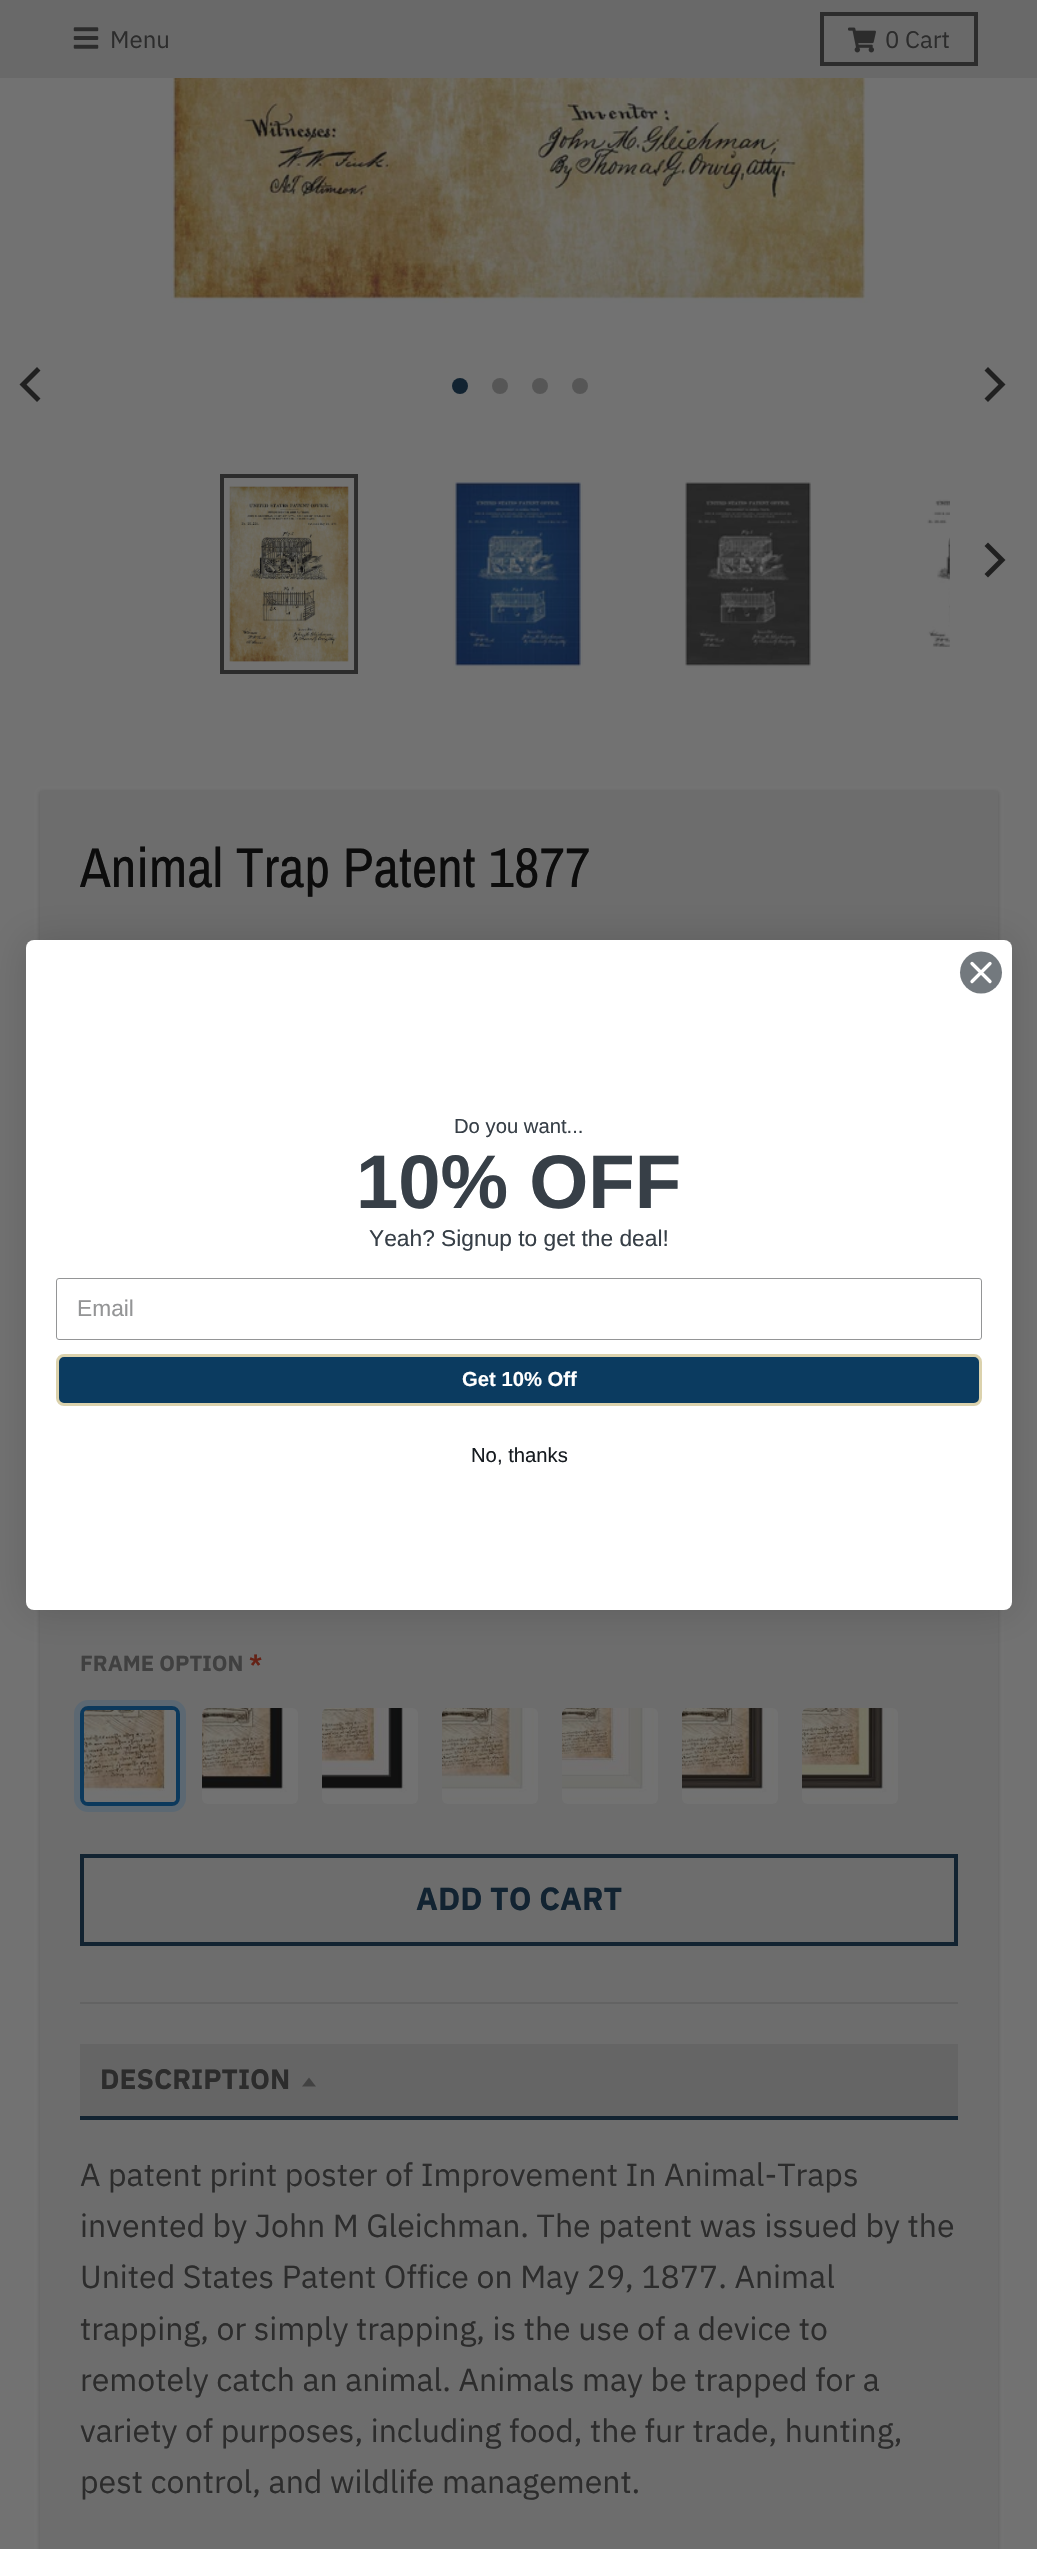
#include "include/core/SkBlurTypes.h"
#include "include/core/SkCanvas.h"
#include "include/core/SkData.h"
#include "include/core/SkFont.h"
#include "include/core/SkFontMgr.h"
#include "include/core/SkImage.h"
#include "include/core/SkMaskFilter.h"
#include "include/core/SkPaint.h"
#include "include/core/SkPathBuilder.h"
#include "include/core/SkTextBlob.h"
#include "include/effects/SkDashPathEffect.h"
#include "include/effects/SkGradientShader.h"
#include "include/utils/SkParsePath.h"

extern sk_sp<SkFontMgr> fontMgr;

void draw(SkCanvas* canvas) {
  SkPaint p;
  p.setAntiAlias(true);
  canvas->clear(SkColorSetRGB(114, 114, 114));
  p.setColor(SkColorSetRGB(105, 105, 105));
  canvas->drawRect(SkRect::MakeLTRB(0, 0, 1037, 78), p);
  canvas->drawImageRect(SkImages::DeferredFromEncodedData(SkData::MakeFromFileName("images/1.png")), SkRect::MakeLTRB(73, 27, 99, 49), SkSamplingOptions());
  p.setStyle(SkPaint::kStroke_Style);
  p.setStrokeWidth(4);
  p.setColor(SkColorSetRGB(44, 44, 44));
  canvas->drawRect(SkRect::MakeLTRB(822, 14, 976, 64), p);
  canvas->drawImageRect(SkImages::DeferredFromEncodedData(SkData::MakeFromFileName("images/2.png")), SkRect::MakeLTRB(848, 27, 876, 53), SkSamplingOptions());
  canvas->drawImageRect(SkImages::DeferredFromEncodedData(SkData::MakeFromFileName("images/3.png")), SkRect::MakeLTRB(171, 78, 870, 303), SkSamplingOptions());
  p.setStyle(SkPaint::kFill_Style);
  p.setColor(SkColorSetRGB(32, 32, 32));
  canvas->drawPath(SkPathBuilder().moveTo(19.5f, 384.5f).lineTo(37, 402).lineTo(40.5f, 398.5f).lineTo(26.5f, 384.5f).lineTo(40.5f, 370.5f).lineTo(37, 367).close().detach(), p);
  p.setColor(SkColorSetRGB(18, 35, 49));
  canvas->drawCircle(460, 386, 8, p);
  p.setColor(SkColorSetRGB(86, 86, 86));
  canvas->drawCircle(500, 386, 8, p);
  canvas->drawCircle(540, 386, 8, p);
  canvas->drawCircle(580, 386, 8, p);
  p.setColor(SkColorSetRGB(32, 32, 32));
  canvas->drawPath(SkPathBuilder().moveTo(1005.5f, 384.5f).lineTo(988, 367).lineTo(984.5f, 370.5f).lineTo(998.5f, 384.5f).lineTo(984.5f, 398.5f).lineTo(988, 402).close().detach(), p);
  p.setStyle(SkPaint::kStroke_Style);
  p.setColor(SkColorSetRGB(44, 44, 44));
  canvas->drawRect(SkRect::MakeLTRB(222, 476, 356, 672), p);
  canvas->drawImageRect(SkImages::DeferredFromEncodedData(SkData::MakeFromFileName("images/4.png")), SkRect::MakeLTRB(229, 478, 355, 670), SkSamplingOptions());
  canvas->drawImageRect(SkImages::DeferredFromEncodedData(SkData::MakeFromFileName("images/5.png")), SkRect::MakeLTRB(453, 480, 583, 670), SkSamplingOptions());
  canvas->drawImageRect(SkImages::DeferredFromEncodedData(SkData::MakeFromFileName("images/6.png")), SkRect::MakeLTRB(685, 480, 811, 668), SkSamplingOptions());
  canvas->drawImageRect(SkImages::DeferredFromEncodedData(SkData::MakeFromFileName("images/7.png")), SkRect::MakeLTRB(927, 499, 950, 647), SkSamplingOptions());
  p.setStyle(SkPaint::kFill_Style);
  p.setColor(SkColorSetRGB(32, 32, 32));
  canvas->drawPath(SkPathBuilder().moveTo(1005.5f, 560).lineTo(988, 542.5f).lineTo(984.5f, 546).lineTo(998.5f, 560).lineTo(984.5f, 574).lineTo(988, 577.5f).close().detach(), p);
  p.setColor(SkColorSetARGB(51, 12, 12, 12));
  p.setMaskFilter(SkMaskFilter::MakeBlur(kNormal_SkBlurStyle, 2));
  canvas->drawRect(SkRect::MakeLTRB(40, 792, 998, 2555), p);
  p.setMaskFilter(nullptr);
  p.setColor(SkColorSetRGB(109, 109, 109));
  canvas->drawRect(SkRect::MakeLTRB(40, 791, 998, 2549), p);
  p.setColor(SkColorSetRGB(99, 99, 99));
  canvas->drawRect(SkRect::MakeLTRB(80, 2002, 958, 2004), p);
  p.setStyle(SkPaint::kStroke_Style);
  p.setStrokeWidth(6);
  p.setColor(SkColorSetRGB(92, 104, 114));
  canvas->drawRoundRect(SkRect::MakeLTRB(77, 1703, 183, 1809), 11, 11, p);
  p.setStrokeWidth(4);
  p.setColor(SkColorSetRGB(12, 57, 92));
  canvas->drawRoundRect(SkRect::MakeLTRB(82, 1708, 178, 1804), 6, 6, p);
  canvas->drawImageRect(SkImages::DeferredFromEncodedData(SkData::MakeFromFileName("images/8.png")), SkRect::MakeLTRB(84, 1710, 176, 1802), SkSamplingOptions());
  canvas->drawImageRect(SkImages::DeferredFromEncodedData(SkData::MakeFromFileName("images/9.png")), SkRect::MakeLTRB(202, 1708, 298, 1804), SkSamplingOptions());
  canvas->drawImageRect(SkImages::DeferredFromEncodedData(SkData::MakeFromFileName("images/10.png")), SkRect::MakeLTRB(322, 1708, 418, 1804), SkSamplingOptions());
  canvas->drawImageRect(SkImages::DeferredFromEncodedData(SkData::MakeFromFileName("images/11.png")), SkRect::MakeLTRB(442, 1708, 538, 1804), SkSamplingOptions());
  canvas->drawImageRect(SkImages::DeferredFromEncodedData(SkData::MakeFromFileName("images/12.png")), SkRect::MakeLTRB(562, 1708, 658, 1804), SkSamplingOptions());
  canvas->drawImageRect(SkImages::DeferredFromEncodedData(SkData::MakeFromFileName("images/13.png")), SkRect::MakeLTRB(682, 1708, 778, 1804), SkSamplingOptions());
  canvas->drawImageRect(SkImages::DeferredFromEncodedData(SkData::MakeFromFileName("images/14.png")), SkRect::MakeLTRB(802, 1708, 898, 1804), SkSamplingOptions());
  p.setColor(SkColorSetRGB(18, 35, 49));
  canvas->drawRect(SkRect::MakeLTRB(82, 1856, 956, 1944), p);
  p.setStyle(SkPaint::kFill_Style);
  p.setColor(SkColorSetRGB(101, 101, 101));
  canvas->drawRect(SkRect::MakeLTRB(80, 2044, 958, 2116), p);
  p.setColor(SkColorSetRGB(18, 35, 49));
  canvas->drawRect(SkRect::MakeLTRB(80, 2116, 958, 2120), p);
  p.setColor(SkColorSetRGB(66, 66, 66));
  canvas->drawPath(SkPathBuilder().moveTo(302, 2086.5f).lineTo(309, 2077.5f).lineTo(316, 2086.5f).close().detach(), p);
  p.setColor(SkColorSetARGB(38, 0, 0, 0));
  p.setMaskFilter(SkMaskFilter::MakeBlur(kNormal_SkBlurStyle, 19));
  canvas->drawRoundRect(SkRect::MakeLTRB(26, 940, 1012, 1610), 8, 8, p);
  p.setMaskFilter(nullptr);
  p.setColor(SK_ColorWHITE);
  canvas->drawRoundRect(SkRect::MakeLTRB(26, 940, 1012, 1610), 8, 8, p);
  p.setColor(SkColorSetRGB(115, 121, 126));
  canvas->drawCircle(981, 972.5f, 21, p);
  p.setStyle(SkPaint::kStroke_Style);
  p.setStrokeWidth(3.3f);
  p.setStrokeCap(SkPaint::kRound_Cap);
  p.setStrokeJoin(SkPaint::kRound_Join);
  p.setColor(SK_ColorWHITE);
  canvas->drawPath(SkPathBuilder().moveTo(972, 963.5f).lineTo(990, 981.5f).moveTo(972, 981.5f).lineTo(990, 963.5f).close().detach(), p);
  p.setStrokeWidth(1);
  p.setStrokeCap(SkPaint::kButt_Cap);
  p.setStrokeJoin(SkPaint::kMiter_Join);
  p.setColor(SkColorSetRGB(148, 149, 150));
  canvas->drawRoundRect(SkRect::MakeLTRB(56.5f, 1278.5f, 981.5f, 1339.5f), 2.5f, 2.5f, p);
  p.setStyle(SkPaint::kFill_Style);
  p.setColor(SkColorSetRGB(11, 59, 96));
  canvas->drawRoundRect(SkRect::MakeLTRB(57.5f, 1355.5f, 980.5f, 1404.5f), 6.5f, 6.5f, p);
  p.setStyle(SkPaint::kStroke_Style);
  p.setStrokeWidth(3);
  p.setColor(SkColorSetRGB(219, 210, 173));
  canvas->drawRoundRect(SkRect::MakeLTRB(57.5f, 1355.5f, 980.5f, 1404.5f), 6.5f, 6.5f, p);
  SkFont font1(fontMgr->matchFamilyStyle("IBM Plex Sans", SkFontStyle::Normal()), 24);
  font1.setSubpixel(true);
  p.setStyle(SkPaint::kFill_Style);
  p.setColor(SkColorSetRGB(44, 44, 44));
  canvas->drawString("Menu", 110, 48, font1, p);
  canvas->drawString("0 Cart", 885, 48, font1, p);
  SkFont font2(fontMgr->matchFamilyStyle("Archivo Narrow", SkFontStyle::Normal()), 56);
  font2.setSubpixel(true);
  p.setColor(SkColorSetRGB(12, 12, 12));
  canvas->drawString("Animal Trap Patent 1877", 80, 887, font2, p);
  SkFont font3(fontMgr->matchFamilyStyle("IBM Plex Sans", SkFontStyle::Bold()), 22);
  font3.setSubpixel(true);
  p.setColor(SkColorSetRGB(64, 64, 64));
  canvas->drawString("FRAME OPTION", 80, 1671, font3, p);
  p.setColor(SkColorSetRGB(101, 34, 22));
  canvas->drawString("*", 249, 1671, font3, p);
  SkFont font4(fontMgr->matchFamilyStyle("IBM Plex Sans", SkFontStyle::Bold()), 32);
  font4.setSubpixel(true);
  p.setColor(SkColorSetRGB(18, 35, 49));
  canvas->drawString("ADD TO CART", 416, 1910, font4, p);
  SkFont font5(fontMgr->matchFamilyStyle("IBM Plex Sans", SkFontStyle::Bold()), 28);
  font5.setSubpixel(true);
  p.setColor(SkColorSetRGB(44, 44, 44));
  canvas->drawString("DESCRIPTION", 100, 2089, font5, p);
  SkFont font6(fontMgr->matchFamilyStyle("IBM Plex Sans", SkFontStyle::Normal()), 32);
  font6.setSubpixel(true);
  canvas->drawString("A patent print poster of Improvement In Animal-Traps", 80, 2186, font6, p);
  canvas->drawString("invented by John M Gleichman. The patent was issued by the", 80, 2237, font6, p);
  canvas->drawString("United States Patent Office on May 29, 1877. Animal", 80, 2288, font6, p);
  canvas->drawString("trapping, or simply trapping, is the use of a device to", 80, 2340, font6, p);
  canvas->drawString("remotely catch an animal. Animals may be trapped for a", 80, 2391, font6, p);
  canvas->drawString("variety of purposes, including food, the fur trade, hunting,", 80, 2442, font6, p);
  canvas->drawString("pest control, and wildlife management.", 80, 2493, font6, p);
  SkFont font7(fontMgr->matchFamilyStyle("Liberation Sans", SkFontStyle::Normal()), 20.25f);
  font7.setSubpixel(true);
  p.setColor(SkColorSetRGB(55, 63, 71));
  canvas->drawString("Do you want...", 454, 1133, font7, p);
  SkFont font8(fontMgr->matchFamilyStyle("Liberation Sans", SkFontStyle::Bold()), 76);
  font8.setSubpixel(true);
  canvas->drawString("10% OFF", 356, 1208, font8, p);
  SkFont font9(fontMgr->matchFamilyStyle("Liberation Sans", SkFontStyle::Normal()), 22.75f);
  font9.setSubpixel(true);
  canvas->drawString("Yeah? Signup to get the deal!", 369, 1246, font9, p);
  p.setColor(SkColorSetRGB(148, 149, 150));
  canvas->drawString("Email", 77, 1316, font9, p);
  SkFont font10(fontMgr->matchFamilyStyle("Liberation Sans", SkFontStyle::Bold()), 20.25f);
  font10.setSubpixel(true);
  p.setColor(SK_ColorWHITE);
  canvas->drawString("Get 10% Off", 462, 1386, font10, p);
  p.setColor(SkColorSetRGB(22, 27, 32));
  canvas->drawString("No, thanks", 471, 1462, font7, p);
}
